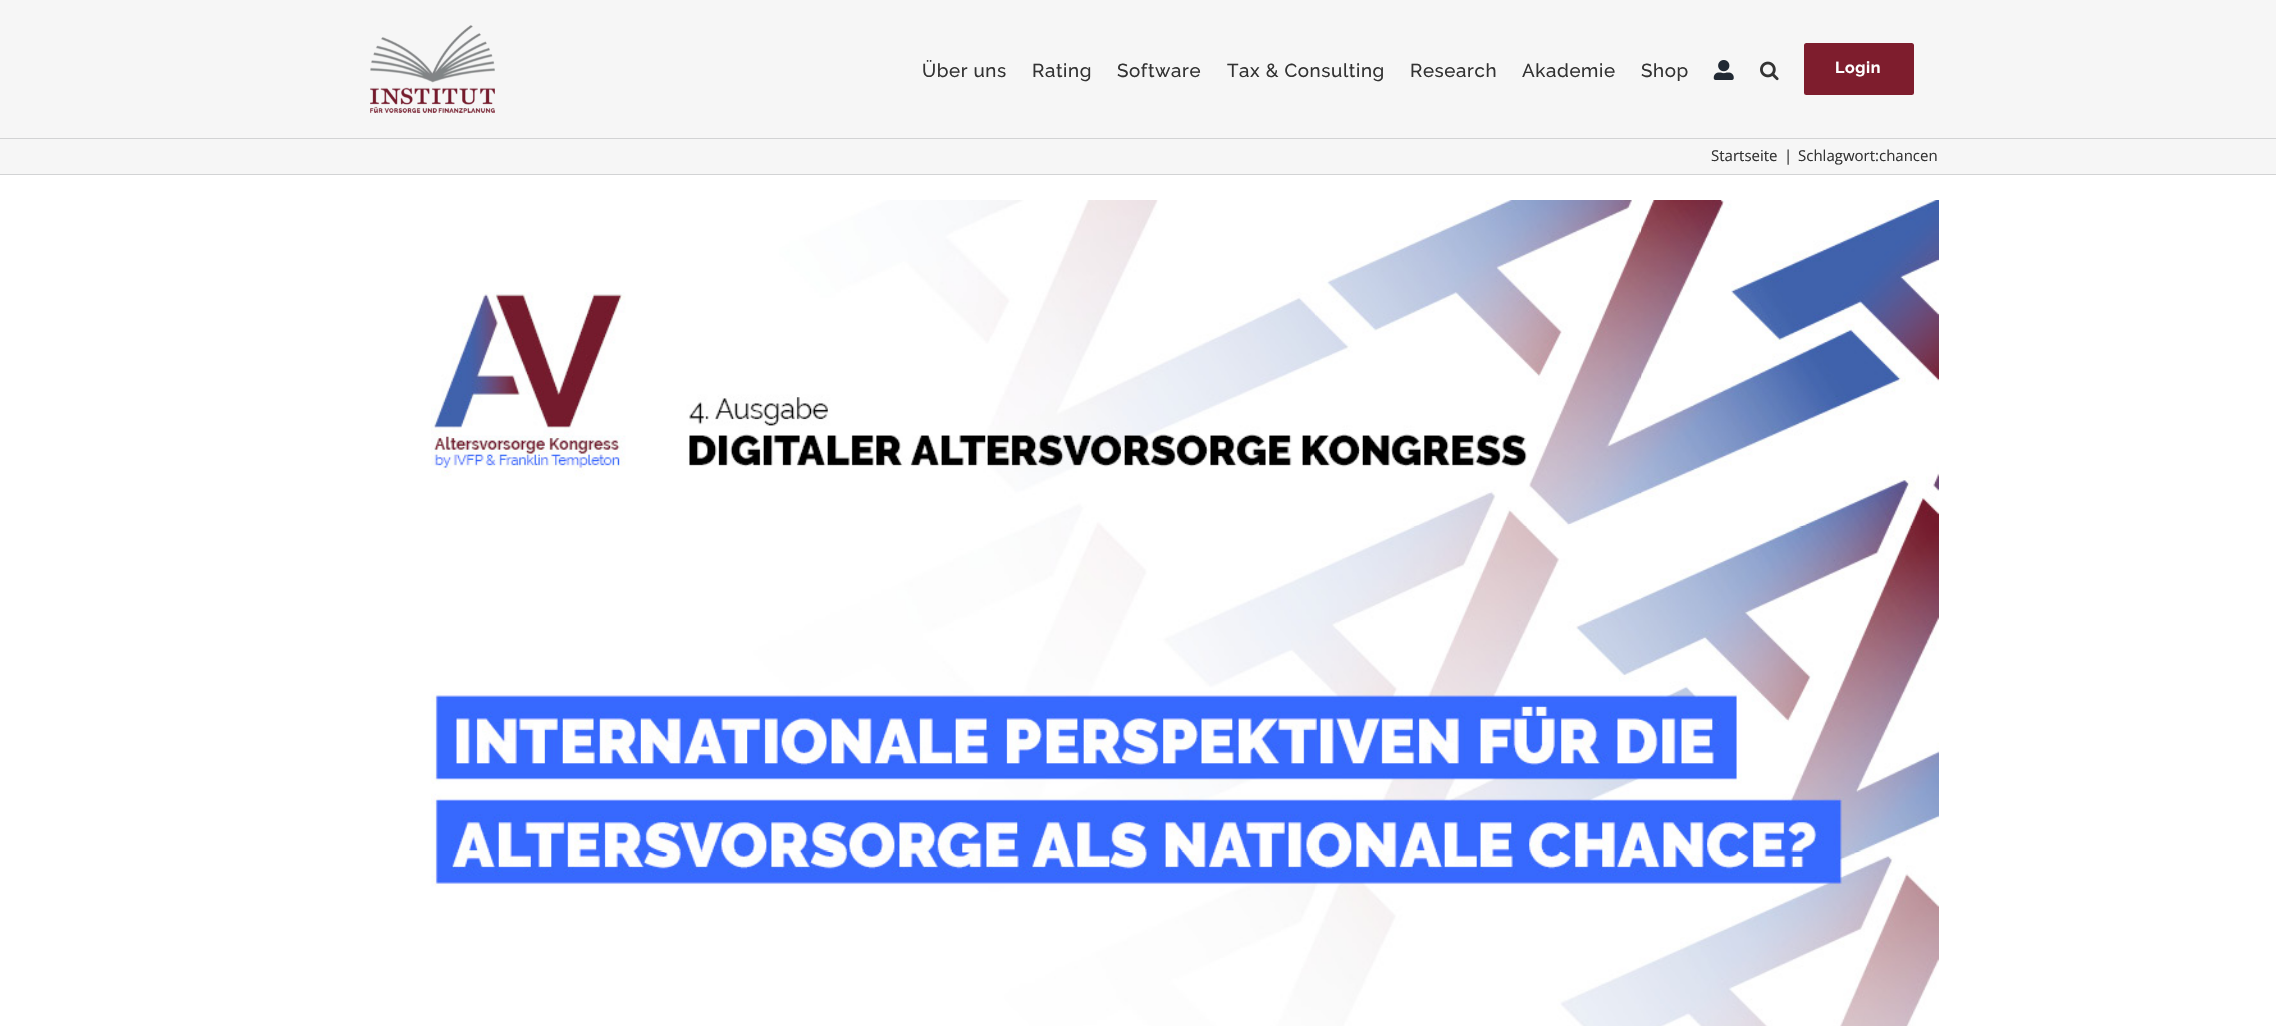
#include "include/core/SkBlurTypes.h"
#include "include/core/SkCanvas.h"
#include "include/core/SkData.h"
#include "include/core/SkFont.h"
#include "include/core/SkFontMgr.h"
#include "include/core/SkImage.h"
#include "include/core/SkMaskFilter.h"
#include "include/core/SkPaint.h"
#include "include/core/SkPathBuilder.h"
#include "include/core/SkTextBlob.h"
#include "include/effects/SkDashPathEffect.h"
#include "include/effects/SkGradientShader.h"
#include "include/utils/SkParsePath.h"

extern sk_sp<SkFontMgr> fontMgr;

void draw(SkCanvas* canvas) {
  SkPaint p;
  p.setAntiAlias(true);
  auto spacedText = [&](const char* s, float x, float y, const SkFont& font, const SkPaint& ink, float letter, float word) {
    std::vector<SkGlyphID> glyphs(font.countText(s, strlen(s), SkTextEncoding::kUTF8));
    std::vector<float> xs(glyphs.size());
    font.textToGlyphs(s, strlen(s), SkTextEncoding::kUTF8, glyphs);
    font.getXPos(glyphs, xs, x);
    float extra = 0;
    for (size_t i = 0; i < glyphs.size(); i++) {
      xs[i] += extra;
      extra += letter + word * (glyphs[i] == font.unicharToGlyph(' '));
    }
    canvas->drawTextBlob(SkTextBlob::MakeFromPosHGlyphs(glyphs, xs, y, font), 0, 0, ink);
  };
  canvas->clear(SK_ColorWHITE);
  p.setColor(SkColorSetRGB(246, 246, 246));
  canvas->drawRect(SkRect::MakeLTRB(0, 0, 2276, 138), p);
  canvas->drawImageRect(SkImages::DeferredFromEncodedData(SkData::MakeFromFileName("images/1.png")), SkRect::MakeLTRB(370, 25, 495, 113), SkSamplingOptions());
  canvas->drawImageRect(SkImages::DeferredFromEncodedData(SkData::MakeFromFileName("images/2.png")), SkRect::MakeLTRB(1713, 60, 1734, 80), SkSamplingOptions());
  canvas->drawImageRect(SkImages::DeferredFromEncodedData(SkData::MakeFromFileName("images/3.png")), SkRect::MakeLTRB(1760, 61, 1779, 81), SkSamplingOptions());
  p.setColor(SkColorSetRGB(126, 29, 45));
  canvas->drawRoundRect(SkRect::MakeLTRB(1805.5f, 44.5f, 1912.5f, 93.5f), 1, 1, p);
  p.setStyle(SkPaint::kStroke_Style);
  p.setStrokeWidth(3);
  canvas->drawRoundRect(SkRect::MakeLTRB(1805.5f, 44.5f, 1912.5f, 93.5f), 1, 1, p);
  p.setStyle(SkPaint::kFill_Style);
  p.setColor(SkColorSetRGB(246, 246, 246));
  canvas->drawRect(SkRect::MakeLTRB(0, 139, 2276, 174), p);
  p.setColor(SkColorSetRGB(210, 211, 212));
  canvas->drawRect(SkRect::MakeLTRB(0, 138, 2276, 139), p);
  canvas->drawRect(SkRect::MakeLTRB(0, 174, 2276, 175), p);
  canvas->drawImageRect(SkImages::DeferredFromEncodedData(SkData::MakeFromFileName("images/4.png")), SkRect::MakeLTRB(431, 200, 1939, 1026), SkSamplingOptions());
  SkFont font1(fontMgr->matchFamilyStyle("Raleway", SkFontStyle(500, SkFontStyle::kNormal_Width, SkFontStyle::kUpright_Slant)), 18.75f);
  font1.setSubpixel(true);
  p.setColor(SkColorSetRGB(51, 51, 51));
  spacedText("Über uns", 922, 77, font1, p, 0.6f, 0);
  spacedText("Rating", 1032, 77, font1, p, 0.6f, 0);
  spacedText("Software", 1117, 77, font1, p, 0.6f, 0);
  spacedText("Tax & Consulting", 1227, 77, font1, p, 0.6f, 0);
  spacedText("Research", 1410, 77, font1, p, 0.6f, 0);
  spacedText("Akademie", 1522, 77, font1, p, 0.6f, 0);
  spacedText("Shop", 1641, 77, font1, p, 0.6f, 0);
  SkFont font2(fontMgr->matchFamilyStyle("Raleway", SkFontStyle::Bold()), 16);
  font2.setSubpixel(true);
  p.setColor(SK_ColorWHITE);
  spacedText("Login", 1835, 73, font2, p, 0.6f, 0);
  SkFont font3(fontMgr->matchFamilyStyle("Open Sans", SkFontStyle::Normal()), 15);
  font3.setSubpixel(true);
  p.setColor(SkColorSetRGB(51, 51, 51));
  canvas->drawString("Startseite", 1711, 161, font3, p);
  canvas->drawString("|", 1784, 161, font3, p);
  canvas->drawString("Schlagwort:chancen", 1798, 161, font3, p);
}
